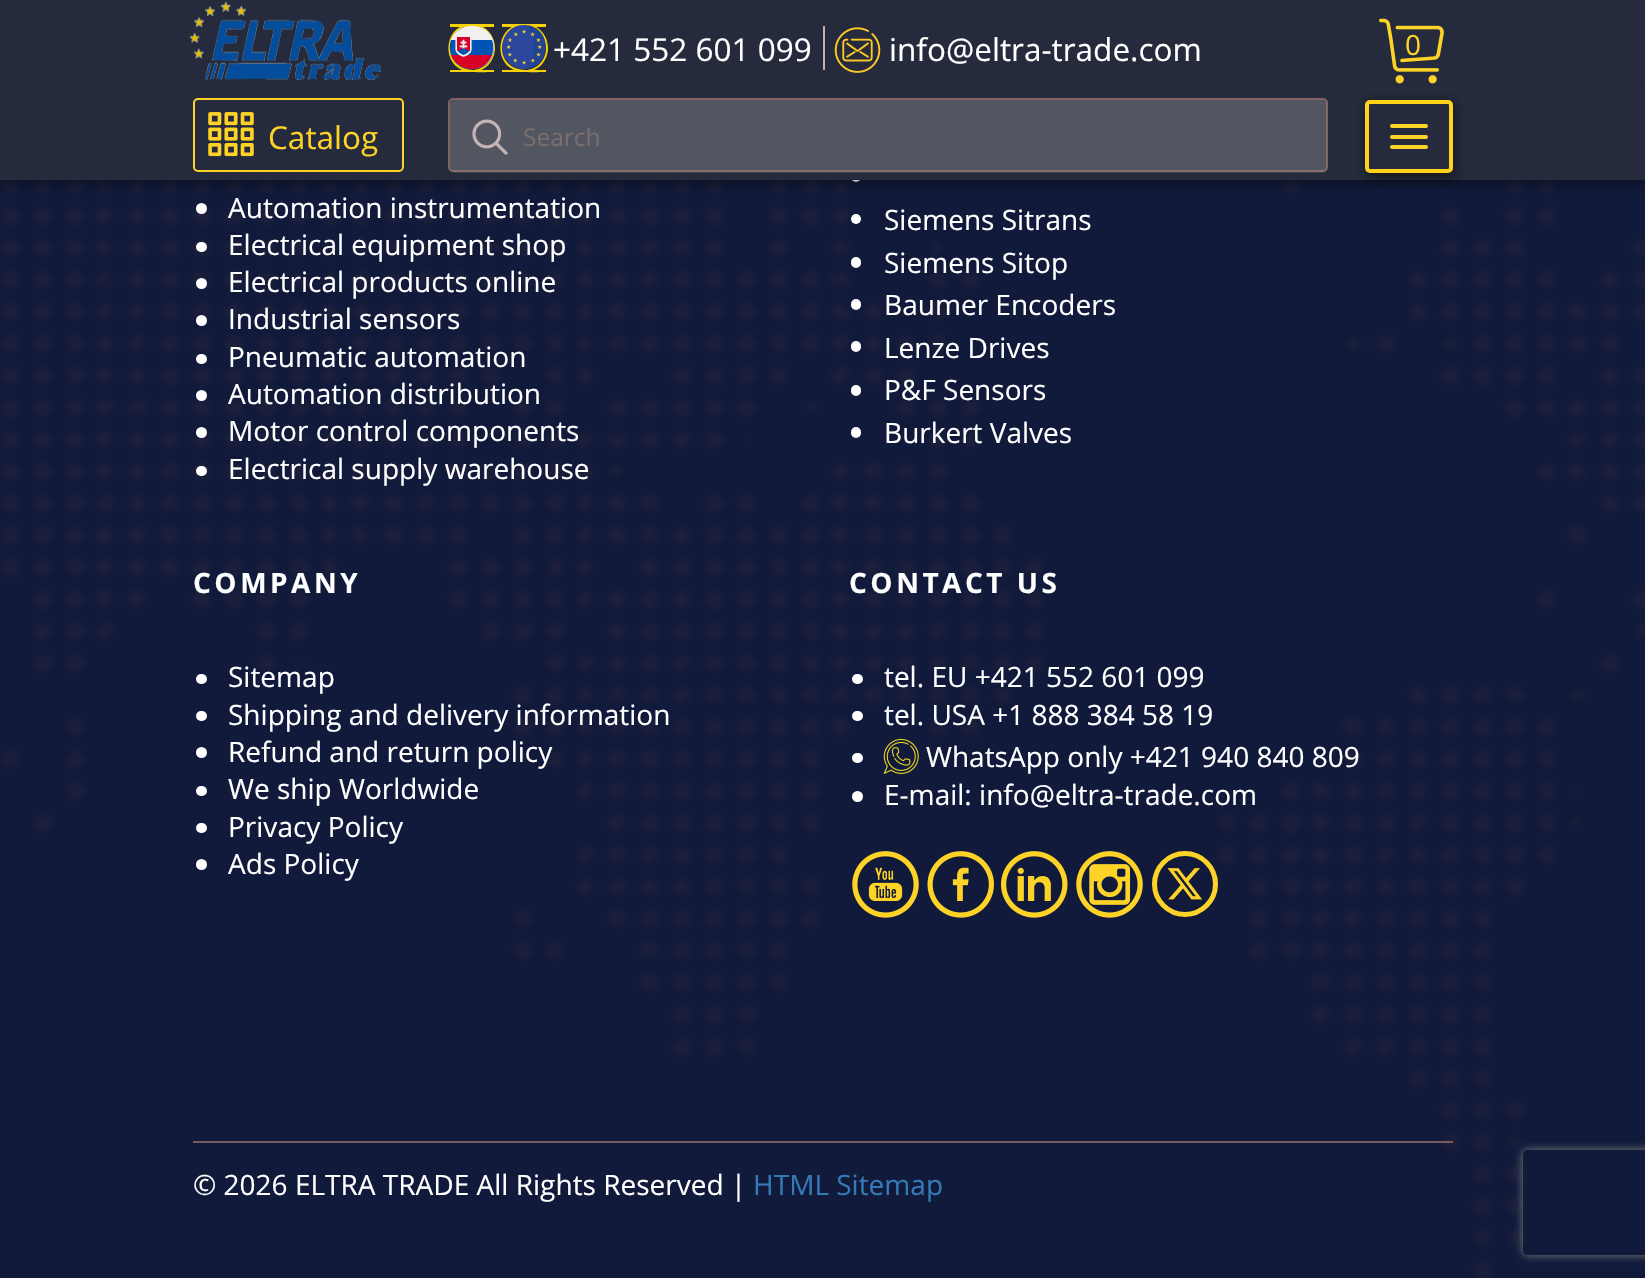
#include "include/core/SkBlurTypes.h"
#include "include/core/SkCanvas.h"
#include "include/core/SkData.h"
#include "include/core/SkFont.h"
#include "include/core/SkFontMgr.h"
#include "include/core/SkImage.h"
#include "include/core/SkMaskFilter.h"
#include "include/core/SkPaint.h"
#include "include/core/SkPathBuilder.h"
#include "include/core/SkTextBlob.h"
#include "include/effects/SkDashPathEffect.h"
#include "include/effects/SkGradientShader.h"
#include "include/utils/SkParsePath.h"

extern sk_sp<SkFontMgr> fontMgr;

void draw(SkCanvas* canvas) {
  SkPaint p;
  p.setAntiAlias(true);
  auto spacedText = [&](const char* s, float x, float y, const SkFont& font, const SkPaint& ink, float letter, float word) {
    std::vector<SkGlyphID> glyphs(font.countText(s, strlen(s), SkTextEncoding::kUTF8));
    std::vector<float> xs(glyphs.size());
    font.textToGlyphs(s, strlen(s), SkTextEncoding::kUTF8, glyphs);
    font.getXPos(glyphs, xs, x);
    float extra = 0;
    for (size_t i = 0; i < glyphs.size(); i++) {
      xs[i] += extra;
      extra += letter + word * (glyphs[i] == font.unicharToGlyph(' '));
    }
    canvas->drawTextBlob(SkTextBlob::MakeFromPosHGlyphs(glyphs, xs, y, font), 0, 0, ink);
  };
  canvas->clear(SkColorSetRGB(17, 26, 58));
  p.setColor(SkColorSetRGB(37, 43, 60));
  canvas->drawRect(SkRect::MakeLTRB(0, 0, 1645, 86), p);
  canvas->drawImageRect(SkImages::DeferredFromEncodedData(SkData::MakeFromFileName("images/1.png")), SkRect::MakeLTRB(189, 1, 381, 80), SkSamplingOptions());
  p.setColor(SkColorSetRGB(246, 210, 0));
  canvas->drawPath(SkPathBuilder(SkPathFillType::kEvenOdd).moveTo(523, 24).lineTo(546, 24).lineTo(546, 72).cubicTo(537, 72, 522, 73, 514, 70).cubicTo(492, 60, 498, 24, 523, 24).close().moveTo(523, 26).lineTo(546, 26).lineTo(546, 70).cubicTo(538, 70, 522, 71, 515, 68).cubicTo(494, 59, 500, 26, 523, 26).close().detach(), p);
  canvas->drawRect(SkRect::MakeLTRB(502, 25, 546, 27), p);
  canvas->drawRect(SkRect::MakeLTRB(525, 70, 546, 72), p);
  canvas->drawPath(SkPathBuilder(SkPathFillType::kEvenOdd).moveTo(502, 24).lineTo(525, 24).cubicTo(538, 24, 548, 35, 548, 48).cubicTo(548, 61, 538, 72, 525, 72).lineTo(502, 72).close().moveTo(502, 26).lineTo(525, 26).cubicTo(537, 26, 546, 36, 546, 48).cubicTo(546, 60, 537, 70, 525, 70).lineTo(502, 70).close().detach(), p);
  p.setColor(SkColorSetRGB(33, 67, 145));
  canvas->drawPath(SkPathBuilder().moveTo(524, 25).lineTo(524, 69).cubicTo(553, 69, 553, 25, 524, 25).close().detach(), p);
  p.setColor(SkColorSetRGB(43, 71, 157));
  canvas->drawPath(SkPathBuilder().moveTo(524, 25).cubicTo(502, 25, 494, 55, 513, 66).cubicTo(516, 68, 520, 69, 524, 69).cubicTo(536, 69, 536, 25, 524, 25).close().detach(), p);
  canvas->drawImageRect(SkImages::DeferredFromEncodedData(SkData::MakeFromFileName("images/2.png")), SkRect::MakeLTRB(522, 29, 526, 34), SkSamplingOptions());
  p.setColor(SkColorSetRGB(208, 170, 170));
  canvas->drawRect(SkRect::MakeLTRB(823, 26, 825, 70), p);
  canvas->drawImageRect(SkImages::DeferredFromEncodedData(SkData::MakeFromFileName("images/3.png")), SkRect::MakeLTRB(513, 32, 518, 37), SkSamplingOptions());
  canvas->drawImageRect(SkImages::DeferredFromEncodedData(SkData::MakeFromFileName("images/4.png")), SkRect::MakeLTRB(530, 32, 535, 37), SkSamplingOptions());
  p.setColor(SkColorSetRGB(246, 210, 0));
  canvas->drawPath(SkPathBuilder(SkPathFillType::kEvenOdd).moveTo(471, 24).lineTo(494, 24).lineTo(494, 72).cubicTo(485, 72, 469, 73, 462, 70).cubicTo(440, 60, 446, 24, 471, 24).close().moveTo(471, 26).lineTo(494, 26).lineTo(494, 70).cubicTo(485, 70, 470, 71, 463, 68).cubicTo(442, 59, 448, 26, 471, 26).close().detach(), p);
  canvas->drawRect(SkRect::MakeLTRB(450, 25, 494, 27), p);
  canvas->drawRect(SkRect::MakeLTRB(472, 70, 494, 72), p);
  canvas->drawPath(SkPathBuilder(SkPathFillType::kEvenOdd).moveTo(450, 24).lineTo(472, 24).cubicTo(485, 24, 495, 35, 495, 48).cubicTo(495, 61, 485, 72, 472, 72).lineTo(450, 72).close().moveTo(450, 26).lineTo(472, 26).cubicTo(484, 26, 494, 36, 494, 48).cubicTo(494, 60, 484, 70, 472, 70).lineTo(450, 70).close().detach(), p);
  p.setColor(SkColorSetRGB(240, 240, 240));
  canvas->drawPath(SkPathBuilder().moveTo(494, 47).cubicTo(494, 76, 450, 76, 450, 47).cubicTo(450, 19, 494, 19, 494, 47).close().detach(), p);
  p.setColor(SkColorSetRGB(0, 82, 180));
  canvas->drawPath(SkPathBuilder().moveTo(472, 69).cubicTo(487, 69, 497, 54, 492, 40).lineTo(451, 40).cubicTo(446, 54, 457, 69, 472, 69).close().detach(), p);
  p.setColor(SkColorSetRGB(216, 0, 39));
  canvas->drawPath(SkPathBuilder().moveTo(472, 69).cubicTo(481, 69, 489, 63, 492, 55).lineTo(451, 55).cubicTo(454, 63, 463, 69, 472, 69).close().detach(), p);
  canvas->drawImageRect(SkImages::DeferredFromEncodedData(SkData::MakeFromFileName("images/8.png")), SkRect::MakeLTRB(455, 40, 472, 57), SkSamplingOptions());
  canvas->drawRect(SkRect::MakeLTRB(457, 37, 470, 51), p);
  canvas->drawImageRect(SkImages::DeferredFromEncodedData(SkData::MakeFromFileName("images/5.png")), SkRect::MakeLTRB(459, 39, 468, 49), SkSamplingOptions());
  canvas->drawImageRect(SkImages::DeferredFromEncodedData(SkData::MakeFromFileName("images/6.png")), SkRect::MakeLTRB(507, 38, 513, 42), SkSamplingOptions());
  canvas->drawImageRect(SkImages::DeferredFromEncodedData(SkData::MakeFromFileName("images/7.png")), SkRect::MakeLTRB(536, 38, 541, 42), SkSamplingOptions());
  canvas->drawImageRect(SkImages::DeferredFromEncodedData(SkData::MakeFromFileName("images/9.png")), SkRect::MakeLTRB(506, 44, 511, 49), SkSamplingOptions());
  canvas->drawImageRect(SkImages::DeferredFromEncodedData(SkData::MakeFromFileName("images/10.png")), SkRect::MakeLTRB(537, 44, 542, 49), SkSamplingOptions());
  canvas->drawImageRect(SkImages::DeferredFromEncodedData(SkData::MakeFromFileName("images/11.png")), SkRect::MakeLTRB(457, 48, 470, 55), SkSamplingOptions());
  canvas->drawImageRect(SkImages::DeferredFromEncodedData(SkData::MakeFromFileName("images/12.png")), SkRect::MakeLTRB(507, 52, 512, 57), SkSamplingOptions());
  canvas->drawImageRect(SkImages::DeferredFromEncodedData(SkData::MakeFromFileName("images/13.png")), SkRect::MakeLTRB(536, 52, 541, 57), SkSamplingOptions());
  canvas->drawImageRect(SkImages::DeferredFromEncodedData(SkData::MakeFromFileName("images/14.png")), SkRect::MakeLTRB(513, 58, 518, 63), SkSamplingOptions());
  canvas->drawImageRect(SkImages::DeferredFromEncodedData(SkData::MakeFromFileName("images/15.png")), SkRect::MakeLTRB(522, 60, 527, 65), SkSamplingOptions());
  canvas->drawImageRect(SkImages::DeferredFromEncodedData(SkData::MakeFromFileName("images/16.png")), SkRect::MakeLTRB(530, 58, 535, 63), SkSamplingOptions());
  canvas->drawImageRect(SkImages::DeferredFromEncodedData(SkData::MakeFromFileName("images/17.png")), SkRect::MakeLTRB(834, 27, 881, 73), SkSamplingOptions());
  canvas->drawImageRect(SkImages::DeferredFromEncodedData(SkData::MakeFromFileName("images/18.png")), SkRect::MakeLTRB(1379, 18, 1444, 84), SkSamplingOptions());
  canvas->drawImageRect(SkImages::DeferredFromEncodedData(SkData::MakeFromFileName("images/21.png")), SkRect::MakeLTRB(2, 180, 1645, 1278), SkSamplingOptions());
  p.setColor(SK_ColorWHITE);
  canvas->drawCircle(856, 177, 5, p);
  p.setColor(SkColorSetARGB(77, 0, 0, 0));
  p.setMaskFilter(SkMaskFilter::MakeBlur(kNormal_SkBlurStyle, 4.5f));
  canvas->drawRect(SkRect::MakeLTRB(0, 93, 1645, 187), p);
  p.setMaskFilter(nullptr);
  p.setColor(SkColorSetRGB(37, 43, 60));
  canvas->drawRect(SkRect::MakeLTRB(0, 86, 1645, 180), p);
  p.setStyle(SkPaint::kStroke_Style);
  p.setStrokeWidth(2);
  p.setColor(SkColorSetRGB(254, 211, 39));
  canvas->drawRoundRect(SkRect::MakeLTRB(194, 99, 403, 171), 4, 4, p);
  canvas->drawImageRect(SkImages::DeferredFromEncodedData(SkData::MakeFromFileName("images/19.png")), SkRect::MakeLTRB(208, 112, 254, 157), SkSamplingOptions());
  p.setStyle(SkPaint::kFill_Style);
  p.setColor(SkColorSetRGB(62, 67, 80));
  canvas->drawRoundRect(SkRect::MakeLTRB(449, 99, 1327, 171), 4, 4, p);
  p.setStyle(SkPaint::kStroke_Style);
  p.setColor(SkColorSetRGB(132, 97, 97));
  canvas->drawRoundRect(SkRect::MakeLTRB(449, 99, 1327, 171), 4, 4, p);
  p.setStyle(SkPaint::kFill_Style);
  p.setColor(SkColorSetARGB(51, 161, 161, 161));
  canvas->drawRoundRect(SkRect::MakeLTRB(450, 100, 1327, 173), 5, 5, p);
  canvas->drawImageRect(SkImages::DeferredFromEncodedData(SkData::MakeFromFileName("images/20.png")), SkRect::MakeLTRB(472, 119, 508, 155), SkSamplingOptions());
  canvas->save();
  canvas->clipPath(SkPathBuilder(SkPathFillType::kEvenOdd).moveTo(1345, 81).lineTo(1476, 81).lineTo(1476, 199).lineTo(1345, 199).close().moveTo(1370, 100).lineTo(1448, 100).cubicTo(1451, 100, 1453, 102, 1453, 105).lineTo(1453, 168).cubicTo(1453, 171, 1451, 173, 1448, 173).lineTo(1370, 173).cubicTo(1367, 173, 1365, 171, 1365, 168).lineTo(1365, 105).cubicTo(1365, 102, 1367, 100, 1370, 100).close().detach(), true);
  p.setColor(SkColorSetARGB(201, 10, 10, 10));
  p.setMaskFilter(SkMaskFilter::MakeBlur(kNormal_SkBlurStyle, 7));
  canvas->drawRoundRect(SkRect::MakeLTRB(1367, 103, 1454, 177), 5, 5, p);
  p.setMaskFilter(nullptr);
  canvas->restore();
  p.setStyle(SkPaint::kStroke_Style);
  p.setStrokeWidth(4);
  p.setColor(SkColorSetRGB(254, 211, 25));
  canvas->drawRoundRect(SkRect::MakeLTRB(1367, 102, 1451, 171), 3, 3, p);
  p.setStyle(SkPaint::kFill_Style);
  p.setColor(SkColorSetRGB(254, 211, 39));
  canvas->drawRoundRect(SkRect::MakeLTRB(1390, 124, 1428, 128), 2, 2, p);
  canvas->drawRoundRect(SkRect::MakeLTRB(1390, 135, 1428, 139), 2, 2, p);
  canvas->drawRoundRect(SkRect::MakeLTRB(1390, 145, 1428, 149), 2, 2, p);
  p.setColor(SK_ColorWHITE);
  canvas->drawCircle(201.5f, 208.5f, 5.5f, p);
  canvas->drawRoundRect(SkRect::MakeLTRB(196, 242, 207, 252), 5, 5, p);
  canvas->drawCircle(201.5f, 283.5f, 5.5f, p);
  canvas->drawCircle(201.5f, 320.5f, 5.5f, p);
  canvas->drawRoundRect(SkRect::MakeLTRB(196, 354, 207, 364), 5, 5, p);
  canvas->drawCircle(201.5f, 395.5f, 5.5f, p);
  canvas->drawCircle(201.5f, 432.5f, 5.5f, p);
  canvas->drawRoundRect(SkRect::MakeLTRB(196, 466, 207, 476), 5, 5, p);
  canvas->drawCircle(856, 219, 5, p);
  canvas->drawRoundRect(SkRect::MakeLTRB(851, 257, 861, 268), 5, 5, p);
  canvas->drawRoundRect(SkRect::MakeLTRB(851, 299, 861, 310), 5, 5, p);
  canvas->drawRoundRect(SkRect::MakeLTRB(851, 341, 861, 352), 5, 5, p);
  canvas->drawRoundRect(SkRect::MakeLTRB(851, 385, 861, 396), 5, 5, p);
  canvas->drawRoundRect(SkRect::MakeLTRB(851, 427, 861, 438), 5, 5, p);
  canvas->drawRoundRect(SkRect::MakeLTRB(196, 674, 207, 684), 5, 5, p);
  canvas->drawRoundRect(SkRect::MakeLTRB(196, 711, 207, 721), 5, 5, p);
  canvas->drawCircle(201.5f, 752.5f, 5.5f, p);
  canvas->drawRoundRect(SkRect::MakeLTRB(196, 786, 207, 796), 5, 5, p);
  canvas->drawRoundRect(SkRect::MakeLTRB(196, 823, 207, 833), 5, 5, p);
  canvas->drawCircle(201.5f, 864.5f, 5.5f, p);
  canvas->drawRoundRect(SkRect::MakeLTRB(852, 674, 863, 684), 5, 5, p);
  canvas->drawRoundRect(SkRect::MakeLTRB(852, 711, 863, 721), 5, 5, p);
  canvas->drawRoundRect(SkRect::MakeLTRB(852, 753, 863, 763), 5, 5, p);
  canvas->drawImageRect(SkImages::DeferredFromEncodedData(SkData::MakeFromFileName("images/22.png")), SkRect::MakeLTRB(883, 738, 919, 774), SkSamplingOptions());
  canvas->drawCircle(857.5f, 796.5f, 5.5f, p);
  canvas->drawImageRect(SkImages::DeferredFromEncodedData(SkData::MakeFromFileName("images/23.png")), SkRect::MakeLTRB(852, 851, 919, 918), SkSamplingOptions());
  canvas->drawImageRect(SkImages::DeferredFromEncodedData(SkData::MakeFromFileName("images/24.png")), SkRect::MakeLTRB(927, 851, 994, 918), SkSamplingOptions());
  canvas->drawImageRect(SkImages::DeferredFromEncodedData(SkData::MakeFromFileName("images/25.png")), SkRect::MakeLTRB(1001, 851, 1068, 918), SkSamplingOptions());
  canvas->drawImageRect(SkImages::DeferredFromEncodedData(SkData::MakeFromFileName("images/26.png")), SkRect::MakeLTRB(1076, 851, 1143, 918), SkSamplingOptions());
  p.setStyle(SkPaint::kStroke_Style);
  p.setStrokeWidth(5);
  p.setColor(SkColorSetRGB(254, 211, 39));
  canvas->drawCircle(1185, 884, 30.5f, p);
  canvas->drawImageRect(SkImages::DeferredFromEncodedData(SkData::MakeFromFileName("images/27.png")), SkRect::MakeLTRB(1167, 868, 1202, 900), SkSamplingOptions());
  p.setStyle(SkPaint::kFill_Style);
  p.setColor(SkColorSetRGB(122, 91, 93));
  canvas->drawRect(SkRect::MakeLTRB(193, 1141, 1453, 1143), p);
  canvas->save();
  canvas->clipPath(SkPathBuilder(SkPathFillType::kEvenOdd).moveTo(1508, 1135).lineTo(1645, 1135).lineTo(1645, 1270).lineTo(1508, 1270).close().moveTo(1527, 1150).lineTo(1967, 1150).cubicTo(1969, 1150, 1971, 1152, 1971, 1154).lineTo(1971, 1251).cubicTo(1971, 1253, 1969, 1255, 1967, 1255).lineTo(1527, 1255).cubicTo(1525, 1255, 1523, 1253, 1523, 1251).lineTo(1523, 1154).cubicTo(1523, 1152, 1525, 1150, 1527, 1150).close().detach(), true);
  p.setColor(SkColorSetRGB(128, 128, 128));
  p.setMaskFilter(SkMaskFilter::MakeBlur(kNormal_SkBlurStyle, 4.5f));
  canvas->drawRoundRect(SkRect::MakeLTRB(1523, 1150, 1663, 1255), 4, 4, p);
  p.setMaskFilter(nullptr);
  canvas->restore();
  SkFont font1(fontMgr->matchFamilyStyle("Open Sans", SkFontStyle::Normal()), 31.5f);
  font1.setSubpixel(true);
  p.setColor(SK_ColorWHITE);
  canvas->drawString("+421 552 601 099", 553, 61, font1, p);
  canvas->drawString("info@eltra-trade.com", 889, 61, font1, p);
  SkFont font2(fontMgr->matchFamilyStyle("Open Sans", SkFontStyle::Normal()), 28);
  font2.setSubpixel(true);
  p.setColor(SkColorSetRGB(254, 211, 39));
  canvas->drawString("0", 1405, 55, font2, p);
  canvas->drawString("Catalog", 268, 149, font1, p);
  SkFont font3(fontMgr->matchFamilyStyle("Open Sans", SkFontStyle::Normal()), 24.5f);
  font3.setSubpixel(true);
  p.setColor(SkColorSetRGB(122, 110, 110));
  canvas->drawString("Search", 523, 146, font3, p);
  p.setColor(SK_ColorWHITE);
  canvas->drawString("Automation instrumentation", 228, 218, font2, p);
  canvas->drawString("Electrical equipment shop", 228, 255, font2, p);
  canvas->drawString("Electrical products online", 228, 292, font2, p);
  canvas->drawString("Industrial sensors", 228, 329, font2, p);
  canvas->drawString("Pneumatic automation", 228, 367, font2, p);
  canvas->drawString("Automation distribution", 228, 404, font2, p);
  canvas->drawString("Motor control components", 228, 441, font2, p);
  canvas->drawString("Electrical supply warehouse", 228, 479, font2, p);
  canvas->drawString("Siemens Sitrans", 884, 230, font2, p);
  canvas->drawString("Siemens Sitop", 884, 273, font2, p);
  canvas->drawString("Baumer Encoders", 884, 315, font2, p);
  canvas->drawString("Lenze Drives", 884, 358, font2, p);
  canvas->drawString("P&F Sensors", 884, 400, font2, p);
  canvas->drawString("Burkert Valves", 884, 443, font2, p);
  SkFont font4(fontMgr->matchFamilyStyle("Open Sans", SkFontStyle::Bold()), 28);
  font4.setSubpixel(true);
  spacedText("COMPANY", 193, 593, font4, p, 3.5f, 0);
  canvas->drawString("Sitemap", 228, 687, font2, p);
  canvas->drawString("Shipping and delivery information", 228, 725, font2, p);
  canvas->drawString("Refund and return policy", 228, 762, font2, p);
  canvas->drawString("We ship Worldwide", 228, 799, font2, p);
  canvas->drawString("Privacy Policy", 228, 837, font2, p);
  canvas->drawString("Ads Policy", 228, 874, font2, p);
  spacedText("CONTACT US", 849, 593, font4, p, 3.5f, 0);
  canvas->drawString("tel. EU +421 552 601 099", 884, 687, font2, p);
  canvas->drawString("tel. USA +1 888 384 58 19", 884, 725, font2, p);
  canvas->drawString("WhatsApp only +421 940 840 809", 926, 767, font2, p);
  canvas->drawString("E-mail: info@eltra-trade.com", 884, 805, font2, p);
  canvas->drawString("© 2026 ELTRA TRADE All Rights Reserved |", 193, 1195, font2, p);
  p.setColor(SkColorSetRGB(51, 122, 183));
  canvas->drawString("HTML Sitemap", 753, 1195, font2, p);
}
